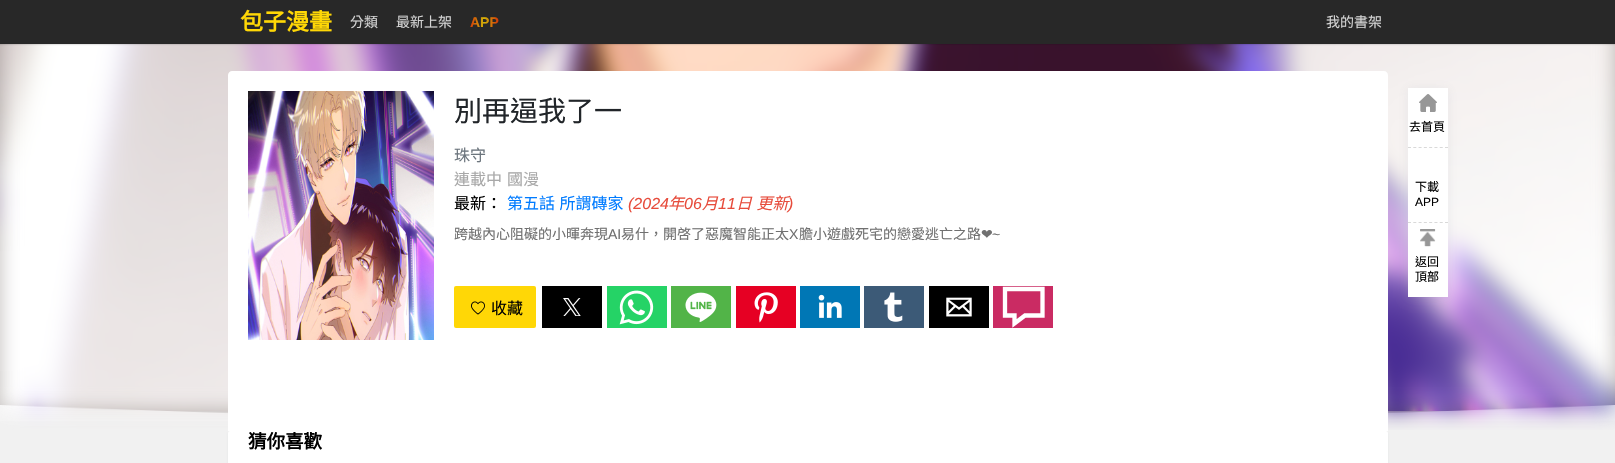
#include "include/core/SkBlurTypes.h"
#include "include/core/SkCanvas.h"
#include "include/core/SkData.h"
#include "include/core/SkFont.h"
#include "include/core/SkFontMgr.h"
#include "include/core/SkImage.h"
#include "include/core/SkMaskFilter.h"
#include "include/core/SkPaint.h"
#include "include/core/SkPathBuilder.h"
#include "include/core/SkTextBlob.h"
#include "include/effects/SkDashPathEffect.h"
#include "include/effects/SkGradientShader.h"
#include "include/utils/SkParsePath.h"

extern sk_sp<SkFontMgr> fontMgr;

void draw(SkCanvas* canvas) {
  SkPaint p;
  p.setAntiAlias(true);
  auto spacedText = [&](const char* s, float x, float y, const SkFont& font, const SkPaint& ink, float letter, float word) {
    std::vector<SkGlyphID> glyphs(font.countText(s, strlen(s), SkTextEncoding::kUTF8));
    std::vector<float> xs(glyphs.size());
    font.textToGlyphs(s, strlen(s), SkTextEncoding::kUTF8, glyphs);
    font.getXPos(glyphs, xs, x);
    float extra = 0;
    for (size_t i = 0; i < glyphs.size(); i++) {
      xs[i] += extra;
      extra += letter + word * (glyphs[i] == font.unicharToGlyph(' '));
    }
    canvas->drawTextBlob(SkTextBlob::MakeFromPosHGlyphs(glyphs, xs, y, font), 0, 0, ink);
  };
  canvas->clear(SkColorSetRGB(241, 241, 241));
  p.setColor(SkColorSetRGB(183, 179, 177));
  canvas->drawRect(SkRect::MakeLTRB(167, 411, 1448, 414), p);
  canvas->drawImageRect(SkImages::DeferredFromEncodedData(SkData::MakeFromFileName("images/1.png")), SkRect::MakeLTRB(0, 44, 1615, 411), SkSamplingOptions());
  canvas->drawImageRect(SkImages::DeferredFromEncodedData(SkData::MakeFromFileName("images/12.png")), SkRect::MakeLTRB(0, 405, 1615, 421), SkSamplingOptions());
  p.setColor(SkColorSetARGB(20, 106, 115, 133));
  p.setMaskFilter(SkMaskFilter::MakeBlur(kNormal_SkBlurStyle, 1.5f));
  canvas->drawRoundRect(SkRect::MakeLTRB(228, 432, 1388, 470), 2, 2, p);
  p.setMaskFilter(nullptr);
  canvas->drawImageRect(SkImages::DeferredFromEncodedData(SkData::MakeFromFileName("images/2.png")), SkRect::MakeLTRB(0, 44, 1615, 430), SkSamplingOptions());
  p.setColor(SkColorSetARGB(26, 0, 0, 0));
  p.setMaskFilter(SkMaskFilter::MakeBlur(kNormal_SkBlurStyle, 0.5f));
  canvas->drawRect(SkRect::MakeLTRB(0, 1, 1615, 45), p);
  p.setMaskFilter(nullptr);
  p.setColor(SkColorSetRGB(40, 40, 40));
  canvas->drawRect(SkRect::MakeLTRB(0, 0, 1615, 44), p);
  p.setColor(SK_ColorWHITE);
  canvas->drawPath(SkPathBuilder().moveTo(232, 71).lineTo(1384, 71).cubicTo(1386, 71, 1388, 73, 1388, 75).lineTo(1388, 431).lineTo(228, 431).lineTo(228, 75).cubicTo(228, 73, 230, 71, 232, 71).close().detach(), p);
  canvas->drawImageRect(SkImages::DeferredFromEncodedData(SkData::MakeFromFileName("images/3.png")), SkRect::MakeLTRB(248, 91, 434, 340), SkSamplingOptions());
  p.setColor(SkColorSetRGB(255, 215, 6));
  canvas->drawRoundRect(SkRect::MakeLTRB(454, 286, 536, 328), 2, 2, p);
  canvas->drawImageRect(SkImages::DeferredFromEncodedData(SkData::MakeFromFileName("images/4.png")), SkRect::MakeLTRB(471, 301, 485, 315), SkSamplingOptions());
  p.setColor(SK_ColorBLACK);
  canvas->drawRect(SkRect::MakeLTRB(542, 286, 602, 328), p);
  canvas->drawImageRect(SkImages::DeferredFromEncodedData(SkData::MakeFromFileName("images/5.png")), SkRect::MakeLTRB(563, 298, 581, 316), SkSamplingOptions());
  p.setColor(SkColorSetRGB(37, 211, 102));
  canvas->drawRect(SkRect::MakeLTRB(607, 286, 667, 328), p);
  canvas->drawImageRect(SkImages::DeferredFromEncodedData(SkData::MakeFromFileName("images/6.png")), SkRect::MakeLTRB(619, 290, 654, 325), SkSamplingOptions());
  p.setColor(SkColorSetRGB(82, 180, 72));
  canvas->drawRect(SkRect::MakeLTRB(671, 286, 731, 328), p);
  canvas->drawImageRect(SkImages::DeferredFromEncodedData(SkData::MakeFromFileName("images/7.png")), SkRect::MakeLTRB(685, 292, 717, 322), SkSamplingOptions());
  p.setColor(SkColorSetRGB(230, 0, 35));
  canvas->drawRect(SkRect::MakeLTRB(736, 286, 796, 328), p);
  canvas->drawImageRect(SkImages::DeferredFromEncodedData(SkData::MakeFromFileName("images/8.png")), SkRect::MakeLTRB(754, 292, 778, 323), SkSamplingOptions());
  p.setColor(SkColorSetRGB(0, 119, 181));
  canvas->drawRect(SkRect::MakeLTRB(800, 286, 860, 328), p);
  canvas->drawImageRect(SkImages::DeferredFromEncodedData(SkData::MakeFromFileName("images/9.png")), SkRect::MakeLTRB(818, 294, 842, 318), SkSamplingOptions());
  p.setColor(SkColorSetRGB(60, 90, 119));
  canvas->drawRect(SkRect::MakeLTRB(864, 286, 924, 328), p);
  canvas->drawImageRect(SkImages::DeferredFromEncodedData(SkData::MakeFromFileName("images/10.png")), SkRect::MakeLTRB(884, 292, 903, 322), SkSamplingOptions());
  p.setColor(SK_ColorBLACK);
  canvas->drawRect(SkRect::MakeLTRB(929, 286, 989, 328), p);
  canvas->drawImageRect(SkImages::DeferredFromEncodedData(SkData::MakeFromFileName("images/11.png")), SkRect::MakeLTRB(946, 297, 972, 317), SkSamplingOptions());
  p.setColor(SkColorSetRGB(202, 43, 99));
  canvas->drawRect(SkRect::MakeLTRB(993, 286, 1053, 328), p);
  p.setStyle(SkPaint::kStroke_Style);
  p.setStrokeWidth(4.3f);
  p.setColor(SK_ColorWHITE);
  canvas->drawPath(SkPathBuilder().moveTo(1014.5f, 323.5f).lineTo(1014.5f, 315.5f).lineTo(1005, 315.5f).lineTo(1005, 289).lineTo(1042.5f, 289).lineTo(1042.5f, 315.5f).lineTo(1025, 315.5f).close().detach(), p);
  p.setStyle(SkPaint::kFill_Style);
  p.setColor(SkColorSetARGB(26, 106, 115, 133));
  p.setMaskFilter(SkMaskFilter::MakeBlur(kNormal_SkBlurStyle, 5));
  canvas->drawRect(SkRect::MakeLTRB(1408, 89, 1448, 298), p);
  p.setMaskFilter(nullptr);
  p.setColor(SK_ColorWHITE);
  canvas->drawRect(SkRect::MakeLTRB(1408, 88, 1448, 297), p);
  canvas->drawImageRect(SkImages::DeferredFromEncodedData(SkData::MakeFromFileName("images/13.png")), SkRect::MakeLTRB(1419, 94, 1437, 112), SkSamplingOptions());
  p.setStyle(SkPaint::kStroke_Style);
  p.setStrokeWidth(1);
  p.setColor(SkColorSetRGB(217, 217, 217));
  p.setPathEffect(SkDashPathEffect::Make({{3, 2.29f}}, 0));
  canvas->drawPath(SkPathBuilder().moveTo(1408, 147.5f).lineTo(1448, 147.5f).detach(), p);
  p.setPathEffect(nullptr);
  p.setPathEffect(SkDashPathEffect::Make({{3, 2.29f}}, 0));
  canvas->drawPath(SkPathBuilder().moveTo(1408, 222.5f).lineTo(1448, 222.5f).detach(), p);
  p.setPathEffect(nullptr);
  canvas->drawImageRect(SkImages::DeferredFromEncodedData(SkData::MakeFromFileName("images/14.png")), SkRect::MakeLTRB(1420, 229, 1436, 247), SkSamplingOptions());
  p.setStyle(SkPaint::kFill_Style);
  p.setColor(SK_ColorWHITE);
  canvas->drawRoundRect(SkRect::MakeLTRB(228, 431, 1388, 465), 2, 2, p);
  SkFont font1(fontMgr->matchFamilyStyle("Noto Sans CJK TC", SkFontStyle::Bold()), 23);
  font1.setSubpixel(true);
  p.setColor(SkColorSetRGB(255, 215, 6));
  canvas->drawString("包子漫畫", 240, 30, font1, p);
  SkFont font2(fontMgr->matchFamilyStyle("Noto Sans CJK TC", SkFontStyle::Normal()), 14);
  font2.setSubpixel(true);
  p.setColor(SkColorSetRGB(212, 212, 212));
  canvas->drawString("分類", 350, 27, font2, p);
  canvas->drawString("最新上架", 396, 27, font2, p);
  SkFont font3(fontMgr->matchFamilyStyle("Liberation Sans", SkFontStyle::Bold()), 14);
  font3.setSubpixel(true);
  {
    const SkColor colors[] = {SkColorSetRGB(212, 8, 8), SkColorSetRGB(212, 180, 8), SkColorSetRGB(212, 8, 8)};
    const float stops[] = {0, 0.5f, 1};
    const SkPoint ends[] = {{464, 22}, {504, 22}};
    p.setShader(SkGradientShader::MakeLinear(ends, colors, stops, 3, SkTileMode::kClamp));
    p.setAlpha(255);
  }
  canvas->drawString("APP", 470, 27, font3, p);
  p.setShader(nullptr);
  p.setColor(SkColorSetRGB(212, 212, 212));
  canvas->drawString("我的書架", 1326, 27, font2, p);
  SkFont font4(fontMgr->matchFamilyStyle("Noto Sans CJK TC", SkFontStyle::Normal()), 28);
  font4.setSubpixel(true);
  p.setColor(SkColorSetRGB(33, 37, 41));
  canvas->drawString("別再逼我了一", 454, 121, font4, p);
  SkFont font5(fontMgr->matchFamilyStyle("Noto Sans CJK TC", SkFontStyle::Normal()), 16);
  font5.setSubpixel(true);
  p.setColor(SkColorSetRGB(108, 117, 125));
  canvas->drawString("珠守", 454, 161, font5, p);
  p.setColor(SkColorSetRGB(168, 168, 168));
  canvas->drawString("連載中", 454, 185, font5, p);
  canvas->drawString("國漫", 507, 185, font5, p);
  p.setColor(SK_ColorBLACK);
  canvas->drawString("最新：", 454, 209, font5, p);
  p.setColor(SkColorSetRGB(0, 123, 255));
  spacedText("第五話 所謂磚家", 507, 209, font5, p, 0, 1);
  SkFont font6(fontMgr->matchFamilyStyle("Liberation Sans", SkFontStyle::Italic()), 16);
  font6.setSubpixel(true);
  p.setColor(SkColorSetRGB(231, 76, 60));
  canvas->drawString("(2024", 628, 209, font6, p);
  SkFont font7(fontMgr->matchFamilyStyle("Noto Sans CJK TC", SkFontStyle::Italic()), 16);
  font7.setSubpixel(true);
  canvas->drawString("年", 668, 209, font7, p);
  canvas->drawString("06", 684, 209, font6, p);
  canvas->drawString("月", 702, 209, font7, p);
  spacedText("日 更新", 736, 209, font7, p, 0, 1);
  canvas->drawString("11", 718, 209, font6, p);
  canvas->drawString(")", 788, 209, font6, p);
  p.setColor(SkColorSetRGB(112, 112, 112));
  canvas->drawString("跨越內心阻礙的小暉奔現", 454, 239, font2, p);
  SkFont font8(fontMgr->matchFamilyStyle("Liberation Sans", SkFontStyle::Normal()), 14);
  font8.setSubpixel(true);
  canvas->drawString("AI", 608, 239, font8, p);
  canvas->drawString("易什，開啓了惡魔智能正太", 621, 239, font2, p);
  canvas->drawString("X", 789, 239, font8, p);
  canvas->drawString("膽小遊戲死宅的戀愛逃亡之路", 799, 239, font2, p);
  SkFont font9(fontMgr->matchFamilyStyle("DejaVu Sans", SkFontStyle::Normal()), 14);
  font9.setSubpixel(true);
  canvas->drawString("❤", 981, 239, font9, p);
  canvas->drawString("~", 992, 239, font8, p);
  p.setColor(SK_ColorBLACK);
  canvas->drawString("收藏", 491, 314, font5, p);
  SkFont font10(fontMgr->matchFamilyStyle("Noto Sans CJK TC", SkFontStyle::Normal()), 12);
  font10.setSubpixel(true);
  canvas->drawString("去首頁", 1409, 131, font10, p);
  canvas->drawString("下載", 1415, 191, font10, p);
  SkFont font11(fontMgr->matchFamilyStyle("Liberation Sans", SkFontStyle::Normal()), 12);
  font11.setSubpixel(true);
  canvas->drawString("APP", 1415, 206, font11, p);
  canvas->drawString("返回", 1415, 266, font10, p);
  canvas->drawString("頂部", 1415, 281, font10, p);
  SkFont font12(fontMgr->matchFamilyStyle("Noto Sans CJK TC", SkFontStyle::Bold()), 18.5f);
  font12.setSubpixel(true);
  canvas->drawString("猜你喜歡", 248, 448, font12, p);
}
